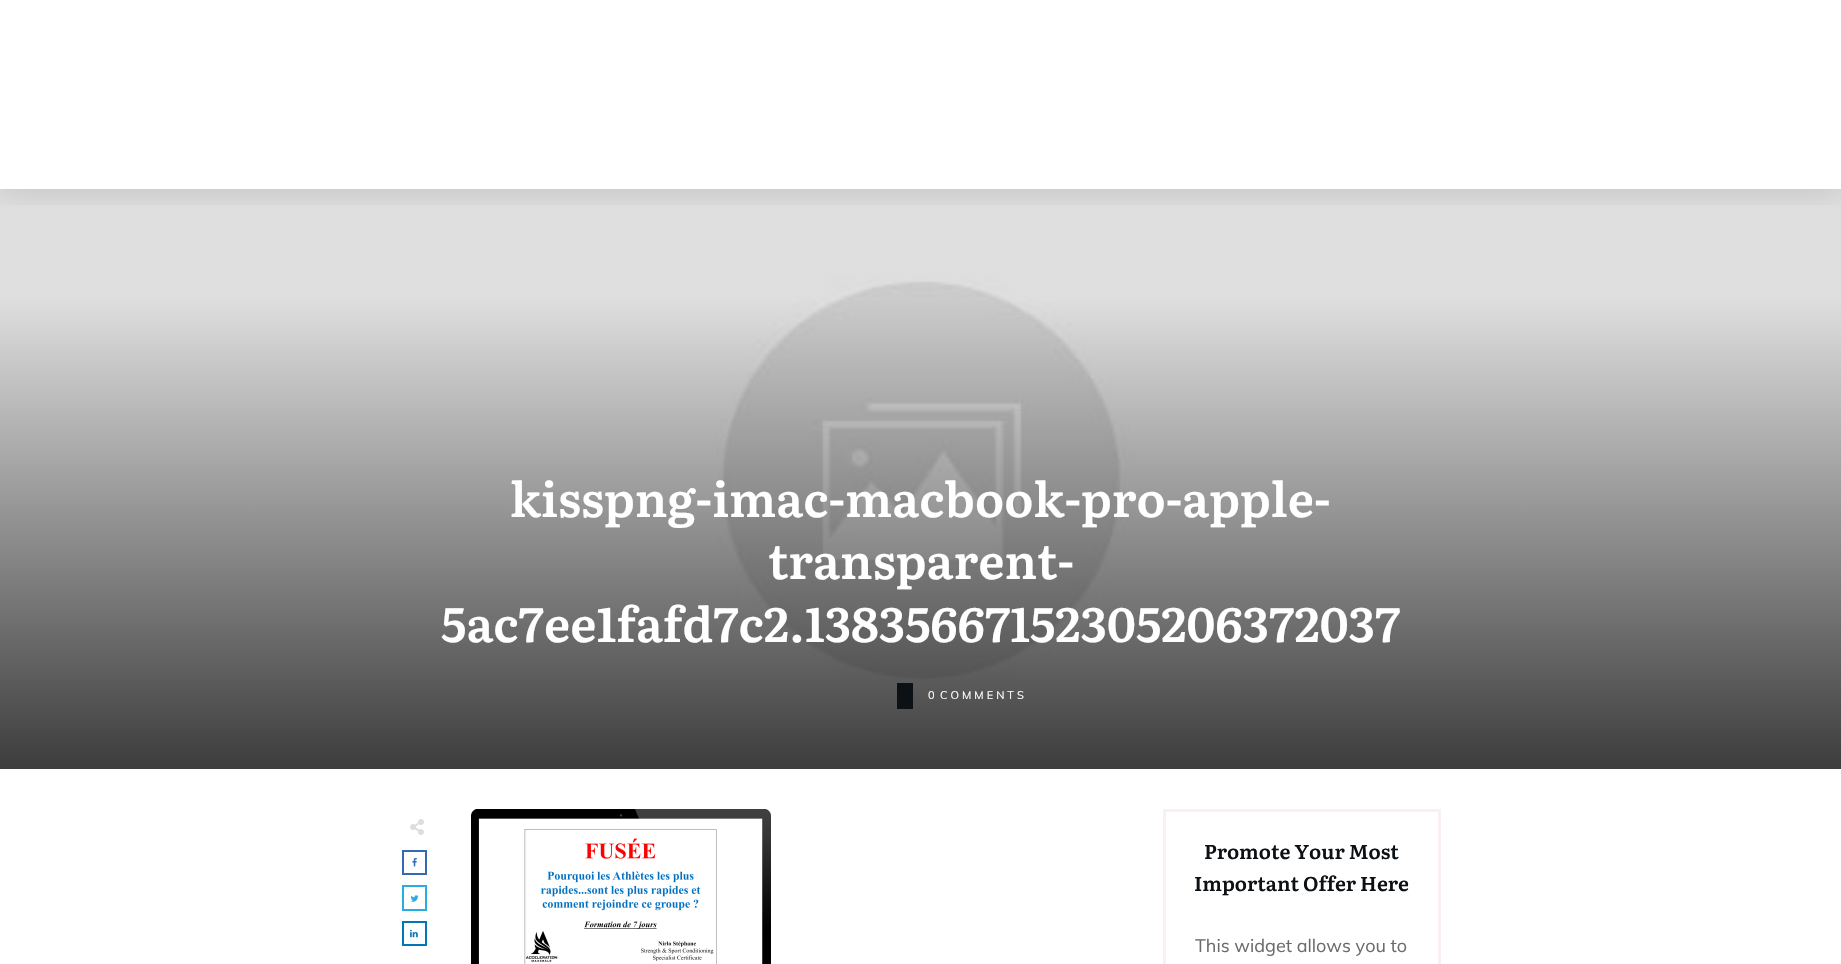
#include "include/core/SkBlurTypes.h"
#include "include/core/SkCanvas.h"
#include "include/core/SkData.h"
#include "include/core/SkFont.h"
#include "include/core/SkFontMgr.h"
#include "include/core/SkImage.h"
#include "include/core/SkMaskFilter.h"
#include "include/core/SkPaint.h"
#include "include/core/SkPathBuilder.h"
#include "include/core/SkTextBlob.h"
#include "include/effects/SkDashPathEffect.h"
#include "include/effects/SkGradientShader.h"
#include "include/utils/SkParsePath.h"

extern sk_sp<SkFontMgr> fontMgr;

void draw(SkCanvas* canvas) {
  SkPaint p;
  p.setAntiAlias(true);
  auto spacedText = [&](const char* s, float x, float y, const SkFont& font, const SkPaint& ink, float letter, float word) {
    std::vector<SkGlyphID> glyphs(font.countText(s, strlen(s), SkTextEncoding::kUTF8));
    std::vector<float> xs(glyphs.size());
    font.textToGlyphs(s, strlen(s), SkTextEncoding::kUTF8, glyphs);
    font.getXPos(glyphs, xs, x);
    float extra = 0;
    for (size_t i = 0; i < glyphs.size(); i++) {
      xs[i] += extra;
      extra += letter + word * (glyphs[i] == font.unicharToGlyph(' '));
    }
    canvas->drawTextBlob(SkTextBlob::MakeFromPosHGlyphs(glyphs, xs, y, font), 0, 0, ink);
  };
  canvas->clear(SK_ColorWHITE);
  canvas->drawImageRect(SkImages::DeferredFromEncodedData(SkData::MakeFromFileName("images/1.png")), SkRect::MakeLTRB(0, 189, 1841, 769), SkSamplingOptions());
  canvas->save();
  canvas->clipRect(SkRect::MakeLTRB(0, 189, 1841, 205));
  p.setColor(SkColorSetARGB(31, 0, 0, 0));
  p.setMaskFilter(SkMaskFilter::MakeBlur(kNormal_SkBlurStyle, 15));
  canvas->drawRect(SkRect::MakeLTRB(0, 2, 1841, 191), p);
  p.setMaskFilter(nullptr);
  canvas->restore();
  p.setColor(SkColorSetRGB(12, 17, 21));
  canvas->drawRect(SkRect::MakeLTRB(897, 683, 913, 709), p);
  canvas->drawImageRect(SkImages::DeferredFromEncodedData(SkData::MakeFromFileName("images/2.png")), SkRect::MakeLTRB(410, 819, 424, 835), SkSamplingOptions());
  p.setStyle(SkPaint::kStroke_Style);
  p.setStrokeWidth(2);
  p.setColor(SkColorSetRGB(53, 105, 180));
  canvas->drawRect(SkRect::MakeLTRB(403, 851, 426, 874), p);
  canvas->drawImageRect(SkImages::DeferredFromEncodedData(SkData::MakeFromFileName("images/3.png")), SkRect::MakeLTRB(412, 858, 417, 867), SkSamplingOptions());
  p.setColor(SkColorSetRGB(41, 172, 224));
  canvas->drawRect(SkRect::MakeLTRB(403, 886, 426, 910), p);
  canvas->drawImageRect(SkImages::DeferredFromEncodedData(SkData::MakeFromFileName("images/4.png")), SkRect::MakeLTRB(410, 895, 419, 902), SkSamplingOptions());
  p.setColor(SkColorSetRGB(1, 119, 181));
  canvas->drawRect(SkRect::MakeLTRB(403, 922, 426, 945), p);
  canvas->drawImageRect(SkImages::DeferredFromEncodedData(SkData::MakeFromFileName("images/5.png")), SkRect::MakeLTRB(410, 929, 418, 938), SkSamplingOptions());
  canvas->drawImageRect(SkImages::DeferredFromEncodedData(SkData::MakeFromFileName("images/6.png")), SkRect::MakeLTRB(471, 809, 771, 964), SkSamplingOptions());
  p.setStrokeWidth(3);
  p.setColor(SkColorSetRGB(251, 239, 240));
  canvas->drawRect(SkRect::MakeLTRB(1164.5f, 810.5f, 1439.5f, 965.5f), p);
  SkFont font1(fontMgr->matchFamilyStyle("Literata", SkFontStyle(600, SkFontStyle::kNormal_Width, SkFontStyle::kUpright_Slant)), 48);
  font1.setSubpixel(true);
  p.setStyle(SkPaint::kFill_Style);
  p.setColor(SK_ColorWHITE);
  canvas->drawString("kisspng-imac-macbook-pro-apple-", 510, 517, font1, p);
  canvas->drawString("transparent-", 768, 579, font1, p);
  canvas->drawString("5ac7ee1fafd7c2.13835667152305206372037", 441, 642, font1, p);
  SkFont font2(fontMgr->matchFamilyStyle("Muli", SkFontStyle::Normal()), 11);
  font2.setSubpixel(true);
  canvas->drawString("0", 928, 699, font2, p);
  spacedText("COMMENTS", 940, 699, font2, p, 3, 0);
  SkFont font3(fontMgr->matchFamilyStyle("Literata", SkFontStyle(600, SkFontStyle::kNormal_Width, SkFontStyle::kUpright_Slant)), 20);
  font3.setSubpixel(true);
  p.setColor(SkColorSetRGB(12, 17, 21));
  canvas->drawString("Promote Your Most", 1204, 859, font3, p);
  canvas->drawString("Important Offer Here", 1194, 891, font3, p);
  SkFont font4(fontMgr->matchFamilyStyle("Muli", SkFontStyle::Normal()), 18);
  font4.setSubpixel(true);
  p.setColor(SkColorSetRGB(106, 107, 108));
  canvas->drawString("This widget allows you to", 1195, 952, font4, p);
}
